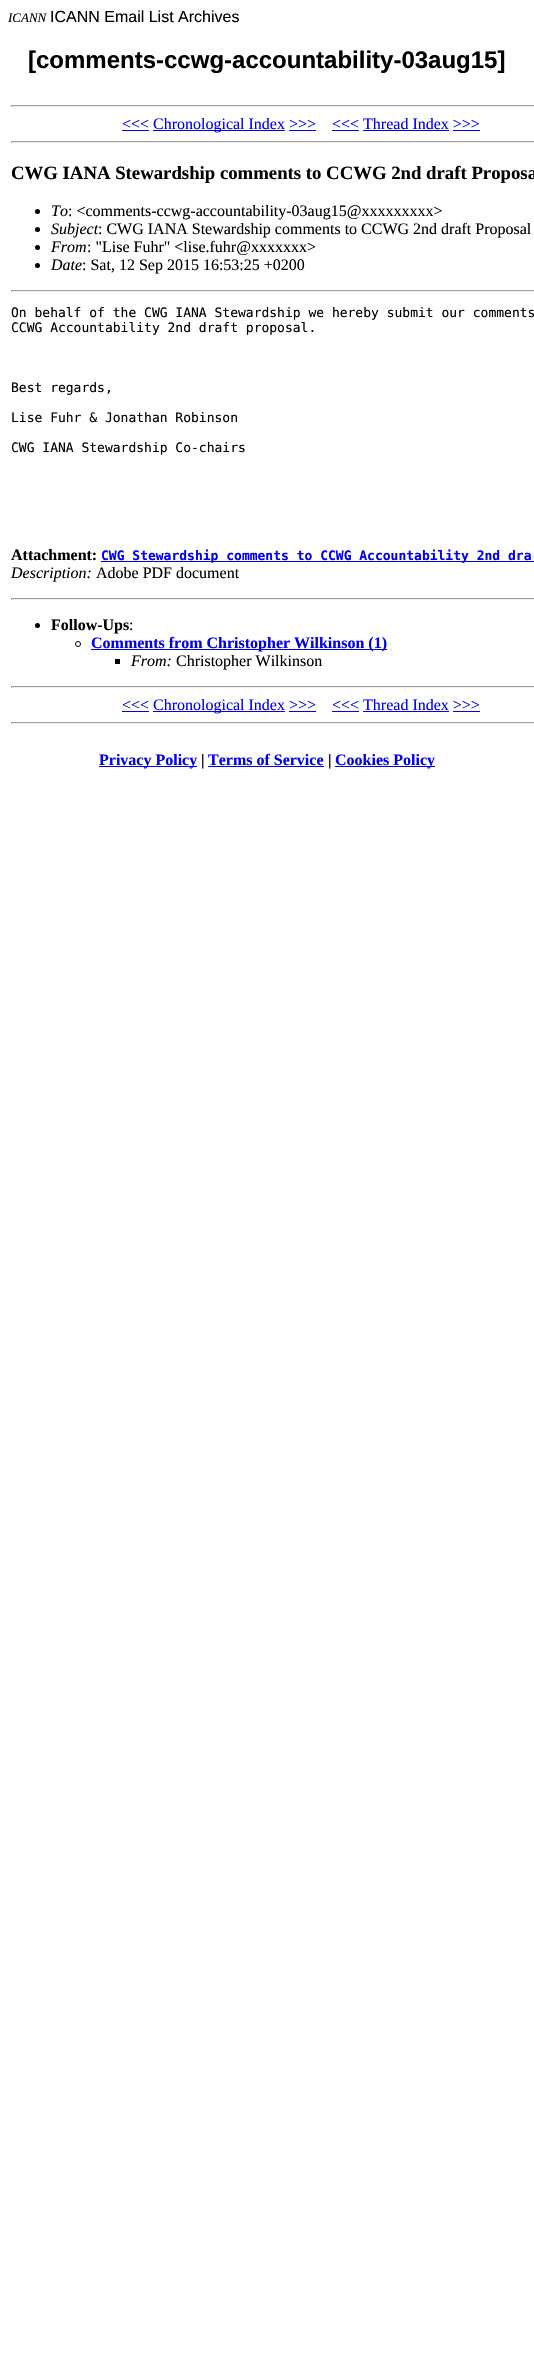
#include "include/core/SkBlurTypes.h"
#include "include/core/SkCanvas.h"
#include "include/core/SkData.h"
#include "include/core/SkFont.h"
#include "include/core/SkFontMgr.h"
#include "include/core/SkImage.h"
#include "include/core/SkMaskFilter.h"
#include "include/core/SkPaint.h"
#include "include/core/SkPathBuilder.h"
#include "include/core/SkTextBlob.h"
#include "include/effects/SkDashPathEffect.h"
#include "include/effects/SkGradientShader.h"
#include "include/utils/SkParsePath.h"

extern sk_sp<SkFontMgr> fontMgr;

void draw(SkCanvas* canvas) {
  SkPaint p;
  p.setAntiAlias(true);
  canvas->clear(SK_ColorWHITE);
  p.setColor(SkColorSetRGB(159, 159, 159));
  canvas->drawRect(SkRect::MakeLTRB(11, 105, 534, 106), p);
  p.setColor(SkColorSetRGB(238, 238, 238));
  canvas->drawRect(SkRect::MakeLTRB(11, 106, 534, 107), p);
  p.setColor(SkColorSetRGB(159, 159, 159));
  canvas->drawRect(SkRect::MakeLTRB(11, 105, 12, 107), p);
  p.setColor(SkColorSetRGB(0, 0, 238));
  canvas->drawRect(SkRect::MakeLTRB(122, 130, 149, 131), p);
  canvas->drawRect(SkRect::MakeLTRB(153, 130, 285, 131), p);
  canvas->drawRect(SkRect::MakeLTRB(332, 130, 359, 131), p);
  canvas->drawRect(SkRect::MakeLTRB(289, 130, 316, 131), p);
  canvas->drawRect(SkRect::MakeLTRB(363, 130, 449, 131), p);
  canvas->drawRect(SkRect::MakeLTRB(453, 130, 480, 131), p);
  p.setColor(SkColorSetRGB(159, 159, 159));
  canvas->drawRect(SkRect::MakeLTRB(11, 141, 534, 142), p);
  p.setColor(SkColorSetRGB(238, 238, 238));
  canvas->drawRect(SkRect::MakeLTRB(11, 142, 534, 143), p);
  p.setColor(SkColorSetRGB(159, 159, 159));
  canvas->drawRect(SkRect::MakeLTRB(11, 141, 12, 143), p);
  p.setColor(SK_ColorBLACK);
  canvas->drawCircle(37.5f, 211.5f, 2.5f, p);
  canvas->drawCircle(37.5f, 229.5f, 2.5f, p);
  canvas->drawCircle(37.5f, 247.5f, 2.5f, p);
  canvas->drawCircle(37.5f, 265.5f, 2.5f, p);
  p.setColor(SkColorSetRGB(159, 159, 159));
  canvas->drawRect(SkRect::MakeLTRB(11, 290, 534, 291), p);
  p.setColor(SkColorSetRGB(238, 238, 238));
  canvas->drawRect(SkRect::MakeLTRB(11, 291, 534, 292), p);
  p.setColor(SkColorSetRGB(159, 159, 159));
  canvas->drawRect(SkRect::MakeLTRB(11, 290, 12, 292), p);
  p.setColor(SkColorSetRGB(0, 0, 238));
  canvas->drawRect(SkRect::MakeLTRB(101, 561, 534, 562), p);
  p.setColor(SkColorSetRGB(159, 159, 159));
  canvas->drawRect(SkRect::MakeLTRB(11, 598, 534, 599), p);
  p.setColor(SkColorSetRGB(238, 238, 238));
  canvas->drawRect(SkRect::MakeLTRB(11, 599, 534, 600), p);
  p.setColor(SkColorSetRGB(159, 159, 159));
  canvas->drawRect(SkRect::MakeLTRB(11, 598, 12, 600), p);
  p.setColor(SK_ColorBLACK);
  canvas->drawCircle(37.5f, 625.5f, 2.5f, p);
  p.setStyle(SkPaint::kStroke_Style);
  p.setStrokeWidth(1);
  canvas->drawCircle(78, 644, 2.5f, p);
  p.setStyle(SkPaint::kFill_Style);
  p.setColor(SkColorSetRGB(0, 0, 238));
  canvas->drawRect(SkRect::MakeLTRB(91, 649, 387, 650), p);
  p.setColor(SK_ColorBLACK);
  canvas->drawRect(SkRect::MakeLTRB(115, 659, 120, 664), p);
  p.setColor(SkColorSetRGB(159, 159, 159));
  canvas->drawRect(SkRect::MakeLTRB(11, 686, 534, 687), p);
  p.setColor(SkColorSetRGB(238, 238, 238));
  canvas->drawRect(SkRect::MakeLTRB(11, 687, 534, 688), p);
  p.setColor(SkColorSetRGB(159, 159, 159));
  canvas->drawRect(SkRect::MakeLTRB(11, 686, 12, 688), p);
  p.setColor(SkColorSetRGB(0, 0, 238));
  canvas->drawRect(SkRect::MakeLTRB(122, 711, 149, 712), p);
  canvas->drawRect(SkRect::MakeLTRB(153, 711, 285, 712), p);
  canvas->drawRect(SkRect::MakeLTRB(332, 711, 359, 712), p);
  canvas->drawRect(SkRect::MakeLTRB(289, 711, 316, 712), p);
  canvas->drawRect(SkRect::MakeLTRB(363, 711, 449, 712), p);
  canvas->drawRect(SkRect::MakeLTRB(453, 711, 480, 712), p);
  p.setColor(SkColorSetRGB(159, 159, 159));
  canvas->drawRect(SkRect::MakeLTRB(11, 722, 534, 723), p);
  p.setColor(SkColorSetRGB(238, 238, 238));
  canvas->drawRect(SkRect::MakeLTRB(11, 723, 534, 724), p);
  p.setColor(SkColorSetRGB(159, 159, 159));
  canvas->drawRect(SkRect::MakeLTRB(11, 722, 12, 724), p);
  p.setColor(SkColorSetRGB(0, 0, 238));
  canvas->drawRect(SkRect::MakeLTRB(99, 766, 197, 767), p);
  canvas->drawRect(SkRect::MakeLTRB(208, 766, 324, 767), p);
  canvas->drawRect(SkRect::MakeLTRB(335, 766, 435, 767), p);
  SkFont font1(fontMgr->matchFamilyStyle("Liberation Serif", SkFontStyle::Italic()), 13);
  font1.setSubpixel(true);
  p.setColor(SK_ColorBLACK);
  canvas->drawString("ICANN", 8, 22, font1, p);
  SkFont font2(fontMgr->matchFamilyStyle("Liberation Sans", SkFontStyle::Normal()), 16);
  font2.setSubpixel(true);
  canvas->drawString("ICANN Email List Archives", 50, 22, font2, p);
  SkFont font3(fontMgr->matchFamilyStyle("Liberation Sans", SkFontStyle::Bold()), 24);
  font3.setSubpixel(true);
  canvas->drawString("[comments-ccwg-accountability-03aug15]", 28, 68, font3, p);
  SkFont font4(fontMgr->matchFamilyStyle("Liberation Serif", SkFontStyle::Normal()), 16);
  font4.setSubpixel(true);
  p.setColor(SkColorSetRGB(0, 0, 238));
  canvas->drawString("<<<", 122, 129, font4, p);
  canvas->drawString("Chronological Index >>>", 153, 129, font4, p);
  canvas->drawString("<<< Thread Index >>>", 332, 129, font4, p);
  SkFont font5(fontMgr->matchFamilyStyle("Liberation Serif", SkFontStyle::Bold()), 18.75f);
  font5.setSubpixel(true);
  p.setColor(SK_ColorBLACK);
  canvas->drawString("CWG IANA Stewardship comments to CCWG 2nd draft Proposa", 11, 179, font5, p);
  SkFont font6(fontMgr->matchFamilyStyle("Liberation Serif", SkFontStyle::Italic()), 16);
  font6.setSubpixel(true);
  canvas->drawString("To", 51, 216, font6, p);
  canvas->drawString(": <comments-ccwg-accountability-03aug15@xxxxxxxxx>", 68, 216, font4, p);
  canvas->drawString("Subject", 51, 234, font6, p);
  canvas->drawString(": CWG IANA Stewardship comments to CCWG 2nd draft Proposal", 98, 234, font4, p);
  canvas->drawString("From", 51, 252, font6, p);
  canvas->drawString(": \"Lise Fuhr\" <lise.fuhr@xxxxxxx>", 87, 252, font4, p);
  canvas->drawString("Date", 51, 270, font6, p);
  canvas->drawString(": Sat, 12 Sep 2015 16:53:25 +0200", 82, 270, font4, p);
  SkFont font7(fontMgr->matchFamilyStyle("DejaVu Sans Mono", SkFontStyle::Normal()), 13);
  font7.setSubpixel(true);
  canvas->drawString("On behalf of the CWG IANA Stewardship we hereby submit our comments", 11, 317, font7, p);
  canvas->drawString("CCWG Accountability 2nd draft proposal.", 11, 332, font7, p);
  canvas->drawString("Best regards,", 11, 392, font7, p);
  canvas->drawString("Lise Fuhr & Jonathan Robinson", 11, 422, font7, p);
  canvas->drawString("CWG IANA Stewardship Co-chairs", 11, 452, font7, p);
  SkFont font8(fontMgr->matchFamilyStyle("Liberation Serif", SkFontStyle::Bold()), 16);
  font8.setSubpixel(true);
  canvas->drawString("Attachment:", 11, 560, font8, p);
  SkFont font9(fontMgr->matchFamilyStyle("DejaVu Sans Mono", SkFontStyle::Bold()), 13);
  font9.setSubpixel(true);
  p.setColor(SkColorSetRGB(0, 0, 238));
  canvas->drawString("CWG Stewardship comments to CCWG Accountability 2nd dra", 101, 560, font9, p);
  p.setColor(SK_ColorBLACK);
  canvas->drawString("Description:", 11, 578, font6, p);
  canvas->drawString("Adobe PDF document", 96, 578, font4, p);
  canvas->drawString("Follow-Ups", 51, 630, font8, p);
  canvas->drawString(":", 129, 630, font4, p);
  p.setColor(SkColorSetRGB(0, 0, 238));
  canvas->drawString("Comments from Christopher Wilkinson (1)", 91, 648, font8, p);
  p.setColor(SK_ColorBLACK);
  canvas->drawString("From:", 131, 666, font6, p);
  canvas->drawString("Christopher Wilkinson", 176, 666, font4, p);
  p.setColor(SkColorSetRGB(0, 0, 238));
  canvas->drawString("<<<", 122, 710, font4, p);
  canvas->drawString("Chronological Index >>>", 153, 710, font4, p);
  canvas->drawString("<<< Thread Index >>>", 332, 710, font4, p);
  canvas->drawString("Privacy Policy", 99, 765, font8, p);
  p.setColor(SK_ColorBLACK);
  canvas->drawString("|", 201, 765, font8, p);
  p.setColor(SkColorSetRGB(0, 0, 238));
  canvas->drawString("Terms of Service", 208, 765, font8, p);
  p.setColor(SK_ColorBLACK);
  canvas->drawString("|", 328, 765, font8, p);
  p.setColor(SkColorSetRGB(0, 0, 238));
  canvas->drawString("Cookies Policy", 335, 765, font8, p);
}
